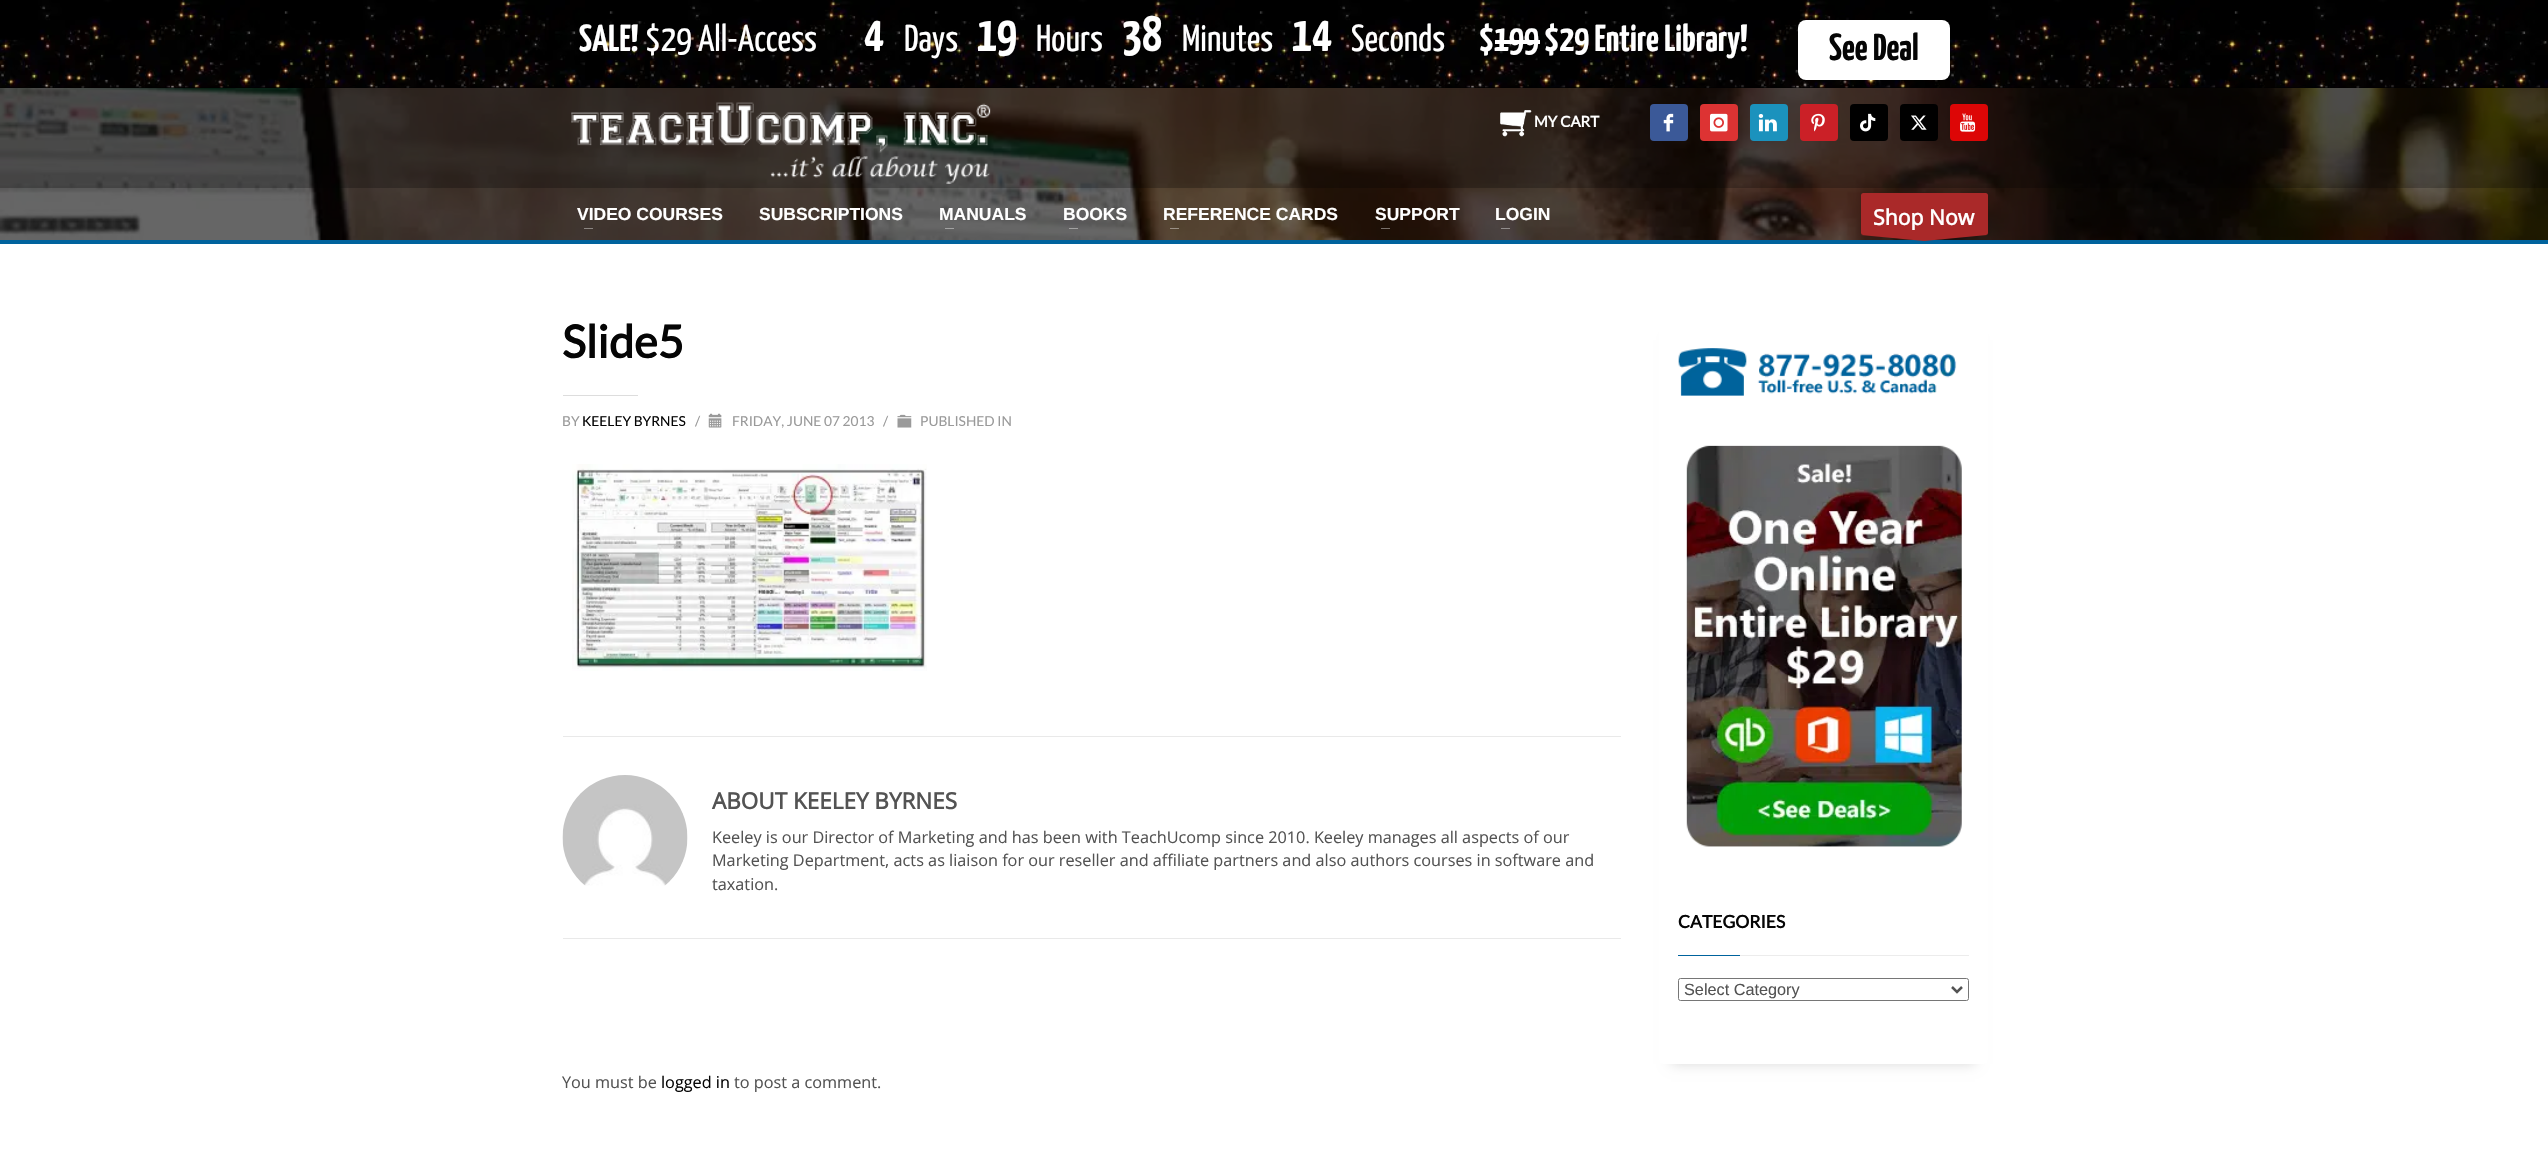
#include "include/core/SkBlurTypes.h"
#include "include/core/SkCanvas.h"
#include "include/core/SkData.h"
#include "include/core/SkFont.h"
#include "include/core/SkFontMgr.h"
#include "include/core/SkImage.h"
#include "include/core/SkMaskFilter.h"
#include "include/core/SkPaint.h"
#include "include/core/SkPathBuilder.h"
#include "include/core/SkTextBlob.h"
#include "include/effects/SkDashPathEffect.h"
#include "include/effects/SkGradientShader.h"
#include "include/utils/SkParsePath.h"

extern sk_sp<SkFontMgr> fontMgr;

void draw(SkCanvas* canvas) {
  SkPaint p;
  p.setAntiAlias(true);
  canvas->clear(SK_ColorWHITE);
  p.setColor(SK_ColorBLACK);
  canvas->drawRect(SkRect::MakeLTRB(0, 87, 2548, 88), p);
  canvas->drawImageRect(SkImages::DeferredFromEncodedData(SkData::MakeFromFileName("images/1.png")), SkRect::MakeLTRB(0, 0, 2548, 88), SkSamplingOptions());
  p.setColor(SK_ColorWHITE);
  canvas->drawRect(SkRect::MakeLTRB(1495, 40, 1540, 44), p);
  canvas->drawRoundRect(SkRect::MakeLTRB(1798, 20, 1950, 80), 8, 8, p);
  canvas->drawImageRect(SkImages::DeferredFromEncodedData(SkData::MakeFromFileName("images/2.png")), SkRect::MakeLTRB(0, 88, 2548, 240), SkSamplingOptions());
  p.setColor(SkColorSetARGB(179, 0, 0, 0));
  canvas->drawRect(SkRect::MakeLTRB(0, 88, 2548, 188), p);
  canvas->drawImageRect(SkImages::DeferredFromEncodedData(SkData::MakeFromFileName("images/3.png")), SkRect::MakeLTRB(571, 102, 991, 184), SkSamplingOptions());
  canvas->drawImageRect(SkImages::DeferredFromEncodedData(SkData::MakeFromFileName("images/4.png")), SkRect::MakeLTRB(1500, 110, 1532, 137), SkSamplingOptions());
  p.setColor(SkColorSetRGB(59, 89, 152));
  canvas->drawRoundRect(SkRect::MakeLTRB(1650, 104, 1688, 141), 4, 4, p);
  canvas->drawImageRect(SkImages::DeferredFromEncodedData(SkData::MakeFromFileName("images/5.png")), SkRect::MakeLTRB(1663, 113, 1674, 132), SkSamplingOptions());
  p.setColor(SkColorSetRGB(221, 51, 51));
  canvas->drawRoundRect(SkRect::MakeLTRB(1700, 104, 1738, 141), 4, 4, p);
  canvas->drawImageRect(SkImages::DeferredFromEncodedData(SkData::MakeFromFileName("images/6.png")), SkRect::MakeLTRB(1710, 113, 1728, 132), SkSamplingOptions());
  p.setColor(SkColorSetRGB(27, 146, 189));
  canvas->drawRoundRect(SkRect::MakeLTRB(1750, 104, 1788, 141), 4, 4, p);
  canvas->drawImageRect(SkImages::DeferredFromEncodedData(SkData::MakeFromFileName("images/7.png")), SkRect::MakeLTRB(1758, 114, 1777, 132), SkSamplingOptions());
  p.setColor(SkColorSetRGB(203, 32, 39));
  canvas->drawRoundRect(SkRect::MakeLTRB(1800, 104, 1838, 141), 4, 4, p);
  canvas->drawImageRect(SkImages::DeferredFromEncodedData(SkData::MakeFromFileName("images/8.png")), SkRect::MakeLTRB(1811, 113, 1825, 132), SkSamplingOptions());
  p.setColor(SK_ColorBLACK);
  canvas->drawRoundRect(SkRect::MakeLTRB(1850, 104, 1888, 141), 4, 4, p);
  canvas->drawImageRect(SkImages::DeferredFromEncodedData(SkData::MakeFromFileName("images/9.png")), SkRect::MakeLTRB(1860, 113, 1876, 132), SkSamplingOptions());
  canvas->drawRoundRect(SkRect::MakeLTRB(1900, 104, 1938, 141), 4, 4, p);
  canvas->drawImageRect(SkImages::DeferredFromEncodedData(SkData::MakeFromFileName("images/10.png")), SkRect::MakeLTRB(1911, 115, 1927, 130), SkSamplingOptions());
  p.setColor(SkColorSetRGB(221, 6, 6));
  canvas->drawRoundRect(SkRect::MakeLTRB(1950, 104, 1988, 141), 4, 4, p);
  canvas->drawImageRect(SkImages::DeferredFromEncodedData(SkData::MakeFromFileName("images/11.png")), SkRect::MakeLTRB(1960, 113, 1976, 132), SkSamplingOptions());
  p.setColor(SkColorSetARGB(153, 0, 0, 0));
  canvas->drawRect(SkRect::MakeLTRB(0, 188, 2548, 240), p);
  p.setColor(SkColorSetRGB(0, 99, 157));
  canvas->drawRect(SkRect::MakeLTRB(0, 240, 2548, 244), p);
  p.setColor(SkColorSetRGB(140, 134, 130));
  canvas->drawRect(SkRect::MakeLTRB(584, 228, 593, 229), p);
  p.setColor(SkColorSetRGB(162, 162, 162));
  canvas->drawRect(SkRect::MakeLTRB(945, 228, 954, 229), p);
  p.setColor(SkColorSetARGB(102, 255, 255, 255));
  canvas->drawRect(SkRect::MakeLTRB(1069, 228, 1078, 229), p);
  canvas->drawRect(SkRect::MakeLTRB(1170, 228, 1179, 229), p);
  p.setColor(SkColorSetRGB(120, 112, 106));
  canvas->drawRect(SkRect::MakeLTRB(1381, 228, 1390, 229), p);
  p.setColor(SkColorSetRGB(146, 141, 140));
  canvas->drawRect(SkRect::MakeLTRB(1501, 228, 1510, 229), p);
  p.setColor(SkColorSetRGB(170, 41, 41));
  canvas->drawRoundRect(SkRect::MakeLTRB(1861, 193, 1988, 235), 2.5f, 2.5f, p);
  canvas->drawPath(SkPathBuilder(SkPathFillType::kEvenOdd).moveTo(1987, 235).lineTo(1924, 241).lineTo(1861, 235).close().detach(), p);
  p.setColor(SkColorSetRGB(221, 221, 221));
  canvas->drawRect(SkRect::MakeLTRB(563, 395, 638, 396), p);
  canvas->drawImageRect(SkImages::DeferredFromEncodedData(SkData::MakeFromFileName("images/12.png")), SkRect::MakeLTRB(708, 413, 722, 428), SkSamplingOptions());
  canvas->drawImageRect(SkImages::DeferredFromEncodedData(SkData::MakeFromFileName("images/13.png")), SkRect::MakeLTRB(897, 414, 912, 428), SkSamplingOptions());
  canvas->drawImageRect(SkImages::DeferredFromEncodedData(SkData::MakeFromFileName("images/14.png")), SkRect::MakeLTRB(572, 464, 927, 671), SkSamplingOptions());
  p.setColor(SkColorSetRGB(233, 233, 233));
  canvas->drawRect(SkRect::MakeLTRB(563, 736, 1621, 737), p);
  canvas->drawRect(SkRect::MakeLTRB(563, 938, 1621, 939), p);
  canvas->drawImageRect(SkImages::DeferredFromEncodedData(SkData::MakeFromFileName("images/15.png")), SkRect::MakeLTRB(562, 775, 688, 886), SkSamplingOptions());
  p.setColor(SkColorSetARGB(38, 0, 0, 0));
  p.setMaskFilter(SkMaskFilter::MakeBlur(kNormal_SkBlurStyle, 6));
  canvas->drawRect(SkRect::MakeLTRB(1671, 340, 1975, 1064), p);
  p.setMaskFilter(nullptr);
  p.setColor(SK_ColorWHITE);
  canvas->drawRoundRect(SkRect::MakeLTRB(1659, 315, 1988, 1064), 4, 4, p);
  canvas->drawImageRect(SkImages::DeferredFromEncodedData(SkData::MakeFromFileName("images/16.png")), SkRect::MakeLTRB(1678, 348, 1957, 396), SkSamplingOptions());
  canvas->drawImageRect(SkImages::DeferredFromEncodedData(SkData::MakeFromFileName("images/17.png")), SkRect::MakeLTRB(1686, 445, 1962, 847), SkSamplingOptions());
  p.setColor(SkColorSetRGB(0, 99, 157));
  canvas->drawRect(SkRect::MakeLTRB(1678, 955, 1740, 956), p);
  p.setColor(SkColorSetRGB(236, 236, 236));
  canvas->drawRect(SkRect::MakeLTRB(1740, 955, 1969, 956), p);
  p.setStyle(SkPaint::kStroke_Style);
  p.setStrokeWidth(1);
  p.setColor(SkColorSetRGB(118, 118, 118));
  canvas->drawRoundRect(SkRect::MakeLTRB(1678.5f, 978.5f, 1968.5f, 1000.5f), 2, 2, p);
  p.setStrokeWidth(2.5f);
  p.setColor(SkColorSetRGB(83, 83, 83));
  canvas->drawPath(SkPathBuilder().moveTo(1952, 987).lineTo(1957, 992).lineTo(1962, 987).detach(), p);
  SkFont font1(fontMgr->matchFamilyStyle("Yanone Kaffeesatz", SkFontStyle::Bold()), 37.5f);
  font1.setSubpixel(true);
  p.setStyle(SkPaint::kFill_Style);
  p.setColor(SK_ColorWHITE);
  canvas->drawString("SALE!", 579, 51, font1, p);
  SkFont font2(fontMgr->matchFamilyStyle("Yanone Kaffeesatz", SkFontStyle::Normal()), 37.5f);
  font2.setSubpixel(true);
  canvas->drawString("$29 All-Access", 645, 51, font2, p);
  SkFont font3(fontMgr->matchFamilyStyle("Yanone Kaffeesatz", SkFontStyle::Bold()), 50);
  font3.setSubpixel(true);
  canvas->drawString("4", 864, 51, font3, p);
  canvas->drawString("Days", 904, 51, font2, p);
  canvas->drawString("19", 977, 51, font3, p);
  canvas->drawString("Hours", 1036, 51, font2, p);
  canvas->drawString("38", 1122, 51, font3, p);
  canvas->drawString("Minutes", 1182, 51, font2, p);
  canvas->drawString("14", 1292, 51, font3, p);
  canvas->drawString("Seconds", 1351, 51, font2, p);
  canvas->drawString("$199 $29 Entire Library!", 1479, 51, font1, p);
  p.setColor(SkColorSetRGB(5, 5, 5));
  canvas->drawString("See Deal", 1829, 60, font1, p);
  SkFont font4(fontMgr->matchFamilyStyle("Lato", SkFontStyle::Bold()), 15);
  font4.setSubpixel(true);
  p.setColor(SK_ColorWHITE);
  canvas->drawString("MY CART", 1534, 127, font4, p);
  SkFont font5(fontMgr->matchFamilyStyle("Liberation Sans", SkFontStyle::Bold()), 17.5f);
  font5.setSubpixel(true);
  canvas->drawString("VIDEO COURSES", 577, 220, font5, p);
  canvas->drawString("SUBSCRIPTIONS", 759, 220, font5, p);
  canvas->drawString("MANUALS", 939, 220, font5, p);
  canvas->drawString("BOOKS", 1063, 220, font5, p);
  canvas->drawString("REFERENCE CARDS", 1163, 220, font5, p);
  canvas->drawString("SUPPORT", 1375, 220, font5, p);
  canvas->drawString("LOGIN", 1495, 220, font5, p);
  SkFont font6(fontMgr->matchFamilyStyle("Open Sans", SkFontStyle::Bold()), 21.25f);
  font6.setSubpixel(true);
  canvas->drawString("Shop Now", 1873, 225, font6, p);
  SkFont font7(fontMgr->matchFamilyStyle("Lato", SkFontStyle::Bold()), 45);
  font7.setSubpixel(true);
  p.setColor(SkColorSetRGB(5, 5, 5));
  canvas->drawString("Slide5", 562, 358, font7, p);
  SkFont font8(fontMgr->matchFamilyStyle("Lato", SkFontStyle::Normal()), 13.75f);
  font8.setSubpixel(true);
  p.setColor(SkColorSetRGB(154, 154, 154));
  canvas->drawString("BY", 562, 426, font8, p);
  p.setColor(SkColorSetRGB(5, 5, 5));
  canvas->drawString("KEELEY BYRNES", 582, 426, font8, p);
  p.setColor(SkColorSetRGB(154, 154, 154));
  canvas->drawString("/", 695, 426, font8, p);
  canvas->drawString("FRIDAY, JUNE 07 2013", 732, 426, font8, p);
  canvas->drawString("/", 883, 426, font8, p);
  canvas->drawString("PUBLISHED IN", 920, 426, font8, p);
  SkFont font9(fontMgr->matchFamilyStyle("Open Sans", SkFontStyle::Bold()), 22.5f);
  font9.setSubpixel(true);
  p.setColor(SkColorSetRGB(83, 83, 83));
  canvas->drawString("ABOUT KEELEY BYRNES", 712, 809, font9, p);
  SkFont font10(fontMgr->matchFamilyStyle("Open Sans", SkFontStyle::Normal()), 16.25f);
  font10.setSubpixel(true);
  canvas->drawString("Keeley is our Director of Marketing and has been with TeachUcomp since 2010. Keeley manages all aspects of our", 712, 843, font10, p);
  canvas->drawString("Marketing Department, acts as liaison for our reseller and affiliate partners and also authors courses in software and", 712, 866, font10, p);
  canvas->drawString("taxation.", 712, 890, font10, p);
  canvas->drawString("You must be", 562, 1088, font10, p);
  p.setColor(SkColorSetRGB(5, 5, 5));
  canvas->drawString("logged in", 661, 1088, font10, p);
  p.setColor(SkColorSetRGB(83, 83, 83));
  canvas->drawString("to post a comment.", 734, 1088, font10, p);
  SkFont font11(fontMgr->matchFamilyStyle("Lato", SkFontStyle::Bold()), 17.5f);
  font11.setSubpixel(true);
  p.setColor(SkColorSetRGB(5, 5, 5));
  canvas->drawString("CATEGORIES", 1678, 928, font11, p);
  SkFont font12(fontMgr->matchFamilyStyle("Liberation Sans", SkFontStyle::Normal()), 16.25f);
  font12.setSubpixel(true);
  p.setColor(SkColorSetRGB(83, 83, 83));
  canvas->drawString("Select Category", 1684, 995, font12, p);
}
